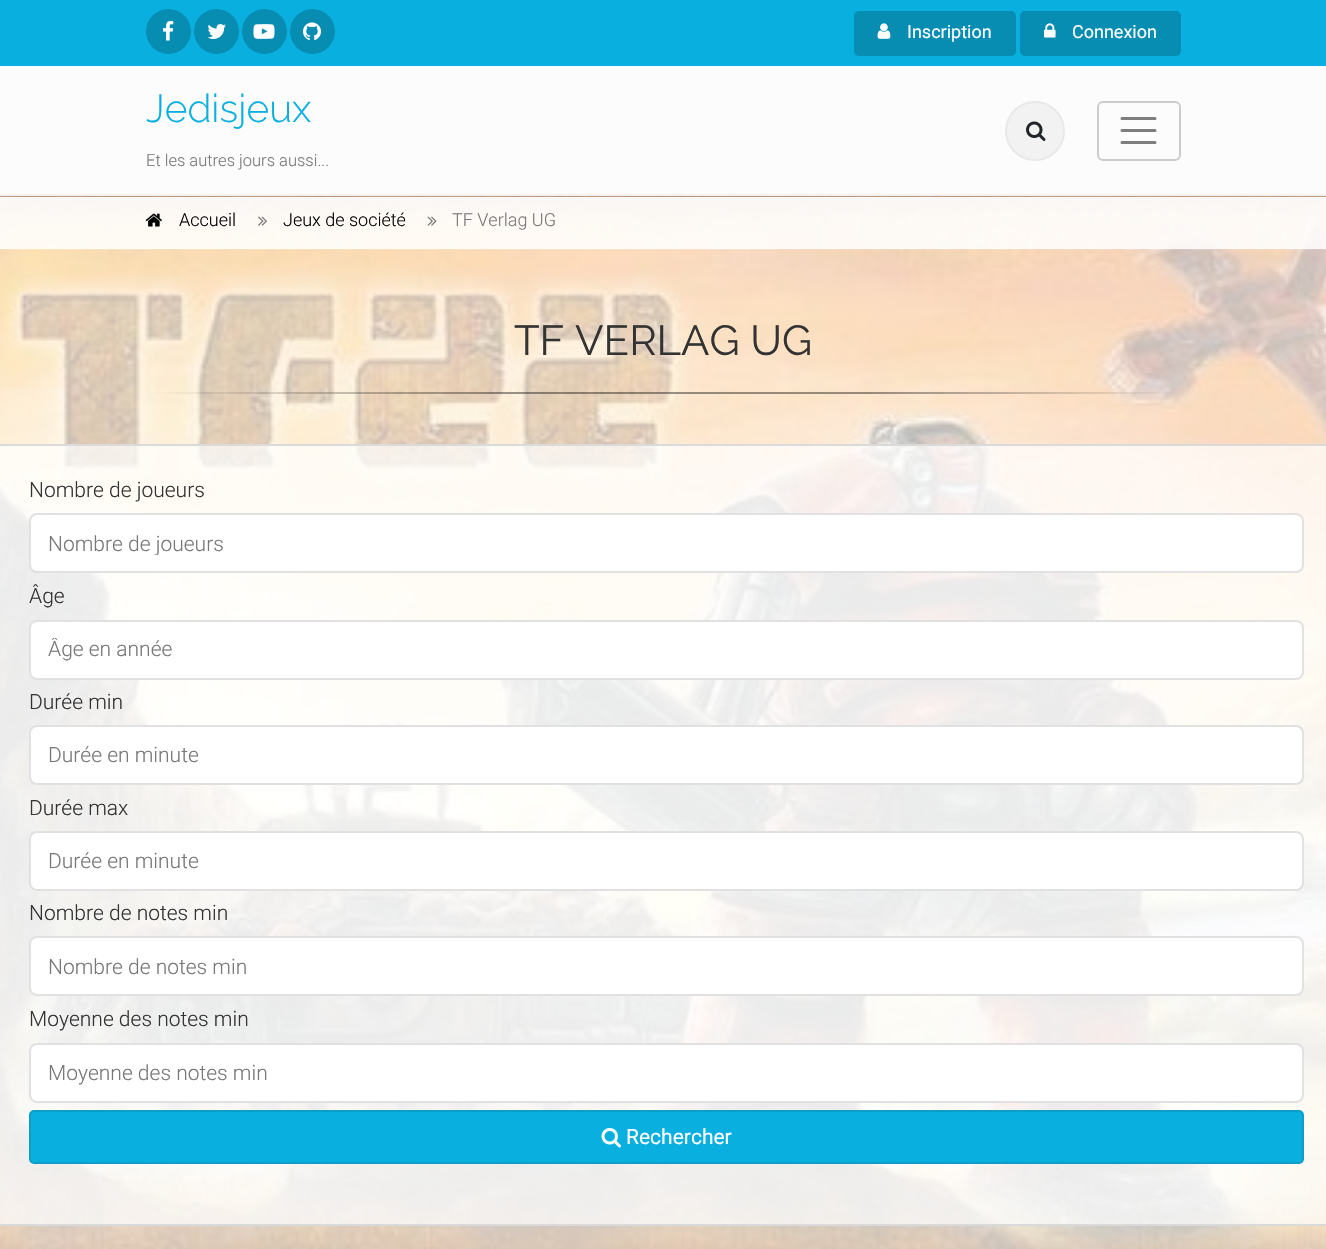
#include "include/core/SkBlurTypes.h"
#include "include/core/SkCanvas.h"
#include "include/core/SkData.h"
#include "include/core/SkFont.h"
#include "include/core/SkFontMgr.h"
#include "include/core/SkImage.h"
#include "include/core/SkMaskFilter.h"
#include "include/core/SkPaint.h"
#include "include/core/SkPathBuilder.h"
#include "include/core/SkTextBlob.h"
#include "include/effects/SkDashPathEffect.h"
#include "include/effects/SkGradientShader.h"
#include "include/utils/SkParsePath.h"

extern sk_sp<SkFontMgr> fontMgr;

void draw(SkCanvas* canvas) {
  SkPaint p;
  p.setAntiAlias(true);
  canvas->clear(SkColorSetRGB(9, 175, 223));
  p.setColor(SkColorSetRGB(7, 140, 178));
  canvas->drawCircle(168.5f, 31.5f, 22.5f, p);
  canvas->drawImageRect(SkImages::DeferredFromEncodedData(SkData::MakeFromFileName("images/1.png")), SkRect::MakeLTRB(163, 21, 174, 41), SkSamplingOptions());
  canvas->drawCircle(216.5f, 31.5f, 22.5f, p);
  canvas->drawImageRect(SkImages::DeferredFromEncodedData(SkData::MakeFromFileName("images/2.png")), SkRect::MakeLTRB(207, 24, 226, 39), SkSamplingOptions());
  canvas->drawCircle(264.5f, 31.5f, 22.5f, p);
  canvas->drawImageRect(SkImages::DeferredFromEncodedData(SkData::MakeFromFileName("images/3.png")), SkRect::MakeLTRB(253, 24, 275, 39), SkSamplingOptions());
  canvas->drawCircle(312.5f, 31.5f, 22.5f, p);
  canvas->drawImageRect(SkImages::DeferredFromEncodedData(SkData::MakeFromFileName("images/4.png")), SkRect::MakeLTRB(303, 22, 321, 40), SkSamplingOptions());
  canvas->drawRoundRect(SkRect::MakeLTRB(854, 11, 1016, 56), 5, 5, p);
  canvas->drawImageRect(SkImages::DeferredFromEncodedData(SkData::MakeFromFileName("images/5.png")), SkRect::MakeLTRB(877, 23, 891, 39), SkSamplingOptions());
  canvas->drawRoundRect(SkRect::MakeLTRB(1020, 11, 1181, 56), 5, 5, p);
  canvas->drawImageRect(SkImages::DeferredFromEncodedData(SkData::MakeFromFileName("images/6.png")), SkRect::MakeLTRB(1044, 23, 1056, 38), SkSamplingOptions());
  p.setColor(SkColorSetRGB(252, 252, 252));
  canvas->drawRect(SkRect::MakeLTRB(0, 68, 1326, 194), p);
  p.setColor(SK_ColorWHITE);
  canvas->drawRect(SkRect::MakeLTRB(0, 66, 1326, 68), p);
  p.setColor(SkColorSetRGB(241, 241, 241));
  canvas->drawRect(SkRect::MakeLTRB(0, 194, 1326, 197), p);
  p.setColor(SkColorSetRGB(242, 242, 242));
  canvas->drawCircle(1035, 131, 29, p);
  p.setStyle(SkPaint::kStroke_Style);
  p.setStrokeWidth(2);
  p.setColor(SkColorSetRGB(233, 233, 233));
  canvas->drawCircle(1035, 131, 29, p);
  canvas->drawImageRect(SkImages::DeferredFromEncodedData(SkData::MakeFromFileName("images/7.png")), SkRect::MakeLTRB(1026, 121, 1046, 141), SkSamplingOptions());
  p.setColor(SkColorSetRGB(204, 204, 204));
  canvas->drawRoundRect(SkRect::MakeLTRB(1098, 102, 1180, 160), 5, 5, p);
  p.setStrokeWidth(3);
  p.setStrokeCap(SkPaint::kRound_Cap);
  p.setColor(SkColorSetRGB(126, 126, 126));
  canvas->drawPath(SkPathBuilder().moveTo(1122, 118.5f).lineTo(1155, 118.5f).moveTo(1122, 130.5f).lineTo(1155, 130.5f).moveTo(1122, 142.5f).lineTo(1155, 142.5f).detach(), p);
  canvas->drawImageRect(SkImages::DeferredFromEncodedData(SkData::MakeFromFileName("images/8.png")), SkRect::MakeLTRB(0, 196, 1326, 1249), SkSamplingOptions());
  p.setStyle(SkPaint::kFill_Style);
  p.setColor(SkColorSetARGB(217, 255, 255, 255));
  canvas->drawRect(SkRect::MakeLTRB(0, 197, 1326, 249), p);
  p.setColor(SkColorSetARGB(26, 255, 255, 255));
  canvas->drawRect(SkRect::MakeLTRB(0, 249, 1326, 250), p);
  canvas->drawImageRect(SkImages::DeferredFromEncodedData(SkData::MakeFromFileName("images/9.png")), SkRect::MakeLTRB(145, 213, 162, 227), SkSamplingOptions());
  canvas->drawImageRect(SkImages::DeferredFromEncodedData(SkData::MakeFromFileName("images/10.png")), SkRect::MakeLTRB(258, 216, 267, 226), SkSamplingOptions());
  canvas->drawImageRect(SkImages::DeferredFromEncodedData(SkData::MakeFromFileName("images/11.png")), SkRect::MakeLTRB(427, 216, 437, 226), SkSamplingOptions());
  p.setColor(SkColorSetRGB(218, 218, 218));
  canvas->drawRect(SkRect::MakeLTRB(0, 444, 1326, 446), p);
  canvas->drawRect(SkRect::MakeLTRB(0, 1224, 1326, 1226), p);
  p.setColor(SkColorSetARGB(179, 255, 255, 255));
  canvas->drawRect(SkRect::MakeLTRB(0, 446, 1326, 1224), p);
  p.setColor(SK_ColorWHITE);
  canvas->drawRoundRect(SkRect::MakeLTRB(30, 514, 1303, 572), 7, 7, p);
  p.setStyle(SkPaint::kStroke_Style);
  p.setStrokeWidth(2);
  p.setStrokeCap(SkPaint::kButt_Cap);
  p.setColor(SkColorSetRGB(225, 225, 225));
  canvas->drawRoundRect(SkRect::MakeLTRB(30, 514, 1303, 572), 7, 7, p);
  p.setStyle(SkPaint::kFill_Style);
  p.setColor(SK_ColorWHITE);
  canvas->drawRoundRect(SkRect::MakeLTRB(30, 621, 1303, 679), 7, 7, p);
  p.setStyle(SkPaint::kStroke_Style);
  p.setColor(SkColorSetRGB(225, 225, 225));
  canvas->drawRoundRect(SkRect::MakeLTRB(30, 621, 1303, 679), 7, 7, p);
  p.setStyle(SkPaint::kFill_Style);
  p.setColor(SK_ColorWHITE);
  canvas->drawRoundRect(SkRect::MakeLTRB(30, 726, 1303, 784), 7, 7, p);
  p.setStyle(SkPaint::kStroke_Style);
  p.setColor(SkColorSetRGB(225, 225, 225));
  canvas->drawRoundRect(SkRect::MakeLTRB(30, 726, 1303, 784), 7, 7, p);
  p.setStyle(SkPaint::kFill_Style);
  p.setColor(SK_ColorWHITE);
  canvas->drawRoundRect(SkRect::MakeLTRB(30, 832, 1303, 890), 7, 7, p);
  p.setStyle(SkPaint::kStroke_Style);
  p.setColor(SkColorSetRGB(225, 225, 225));
  canvas->drawRoundRect(SkRect::MakeLTRB(30, 832, 1303, 890), 7, 7, p);
  p.setStyle(SkPaint::kFill_Style);
  p.setColor(SK_ColorWHITE);
  canvas->drawRoundRect(SkRect::MakeLTRB(30, 937, 1303, 995), 7, 7, p);
  p.setStyle(SkPaint::kStroke_Style);
  p.setColor(SkColorSetRGB(225, 225, 225));
  canvas->drawRoundRect(SkRect::MakeLTRB(30, 937, 1303, 995), 7, 7, p);
  p.setStyle(SkPaint::kFill_Style);
  p.setColor(SK_ColorWHITE);
  canvas->drawRoundRect(SkRect::MakeLTRB(30, 1044, 1303, 1102), 7, 7, p);
  p.setStyle(SkPaint::kStroke_Style);
  p.setColor(SkColorSetRGB(225, 225, 225));
  canvas->drawRoundRect(SkRect::MakeLTRB(30, 1044, 1303, 1102), 7, 7, p);
  p.setStyle(SkPaint::kFill_Style);
  p.setColor(SkColorSetRGB(9, 175, 223));
  canvas->drawRoundRect(SkRect::MakeLTRB(30, 1111, 1303, 1163), 4, 4, p);
  p.setStyle(SkPaint::kStroke_Style);
  p.setColor(SkColorSetRGB(12, 158, 199));
  canvas->drawRoundRect(SkRect::MakeLTRB(30, 1111, 1303, 1163), 4, 4, p);
  canvas->drawImageRect(SkImages::DeferredFromEncodedData(SkData::MakeFromFileName("images/12.png")), SkRect::MakeLTRB(601, 1128, 621, 1148), SkSamplingOptions());
  SkFont font1(fontMgr->matchFamilyStyle("Roboto", SkFontStyle::Normal()), 18);
  font1.setSubpixel(true);
  p.setStyle(SkPaint::kFill_Style);
  p.setColor(SK_ColorWHITE);
  canvas->drawString("Inscription", 907, 38, font1, p);
  canvas->drawString("Connexion", 1072, 38, font1, p);
  SkFont font2(fontMgr->matchFamilyStyle("Raleway", SkFontStyle(300, SkFontStyle::kNormal_Width, SkFontStyle::kUpright_Slant)), 39);
  font2.setSubpixel(true);
  p.setColor(SkColorSetRGB(9, 175, 223));
  canvas->drawString("Jedisjeux", 146, 122, font2, p);
  SkFont font3(fontMgr->matchFamilyStyle("Roboto", SkFontStyle(300, SkFontStyle::kNormal_Width, SkFontStyle::kUpright_Slant)), 16.5f);
  font3.setSubpixel(true);
  p.setColor(SkColorSetRGB(119, 119, 119));
  canvas->drawString("Et les autres jours aussi...", 146, 166, font3, p);
  SkFont font4(fontMgr->matchFamilyStyle("Roboto", SkFontStyle(300, SkFontStyle::kNormal_Width, SkFontStyle::kUpright_Slant)), 18);
  font4.setSubpixel(true);
  p.setColor(SK_ColorBLACK);
  canvas->drawString("Accueil", 179, 226, font4, p);
  canvas->drawString("Jeux de société", 283, 226, font4, p);
  p.setColor(SkColorSetRGB(119, 119, 119));
  canvas->drawString("TF Verlag UG", 452, 226, font4, p);
  SkFont font5(fontMgr->matchFamilyStyle("Raleway", SkFontStyle::Normal()), 42);
  font5.setSubpixel(true);
  p.setColor(SkColorSetRGB(51, 51, 51));
  canvas->drawString("TF VERLAG UG", 514, 355, font5, p);
  SkFont font6(fontMgr->matchFamilyStyle("Roboto", SkFontStyle(300, SkFontStyle::kNormal_Width, SkFontStyle::kUpright_Slant)), 21);
  font6.setSubpixel(true);
  canvas->drawString("Nombre de joueurs", 29, 497, font6, p);
  canvas->save();
  canvas->clipRect(SkRect::MakeLTRB(48, 531, 1235, 555));
  p.setColor(SkColorSetRGB(119, 119, 119));
  canvas->drawString("Nombre de joueurs", 48, 551, font6, p);
  canvas->restore();
  p.setColor(SkColorSetRGB(51, 51, 51));
  canvas->drawString("Âge", 29, 603, font6, p);
  canvas->save();
  canvas->clipRect(SkRect::MakeLTRB(48, 638, 1235, 662));
  p.setColor(SkColorSetRGB(119, 119, 119));
  canvas->drawString("Âge en année", 48, 656, font6, p);
  canvas->restore();
  p.setColor(SkColorSetRGB(51, 51, 51));
  canvas->drawString("Durée min", 29, 709, font6, p);
  p.setColor(SkColorSetRGB(119, 119, 119));
  canvas->drawString("Durée en minute", 48, 762, font6, p);
  p.setColor(SkColorSetRGB(51, 51, 51));
  canvas->drawString("Durée max", 29, 815, font6, p);
  p.setColor(SkColorSetRGB(119, 119, 119));
  canvas->drawString("Durée en minute", 48, 868, font6, p);
  p.setColor(SkColorSetRGB(51, 51, 51));
  canvas->drawString("Nombre de notes min", 29, 920, font6, p);
  p.setColor(SkColorSetRGB(119, 119, 119));
  canvas->drawString("Nombre de notes min", 48, 974, font6, p);
  p.setColor(SkColorSetRGB(51, 51, 51));
  canvas->drawString("Moyenne des notes min", 29, 1026, font6, p);
  p.setColor(SkColorSetRGB(119, 119, 119));
  canvas->drawString("Moyenne des notes min", 48, 1080, font6, p);
  SkFont font7(fontMgr->matchFamilyStyle("Roboto", SkFontStyle::Normal()), 21);
  font7.setSubpixel(true);
  p.setColor(SK_ColorWHITE);
  canvas->drawString("Rechercher", 626, 1144, font7, p);
}
